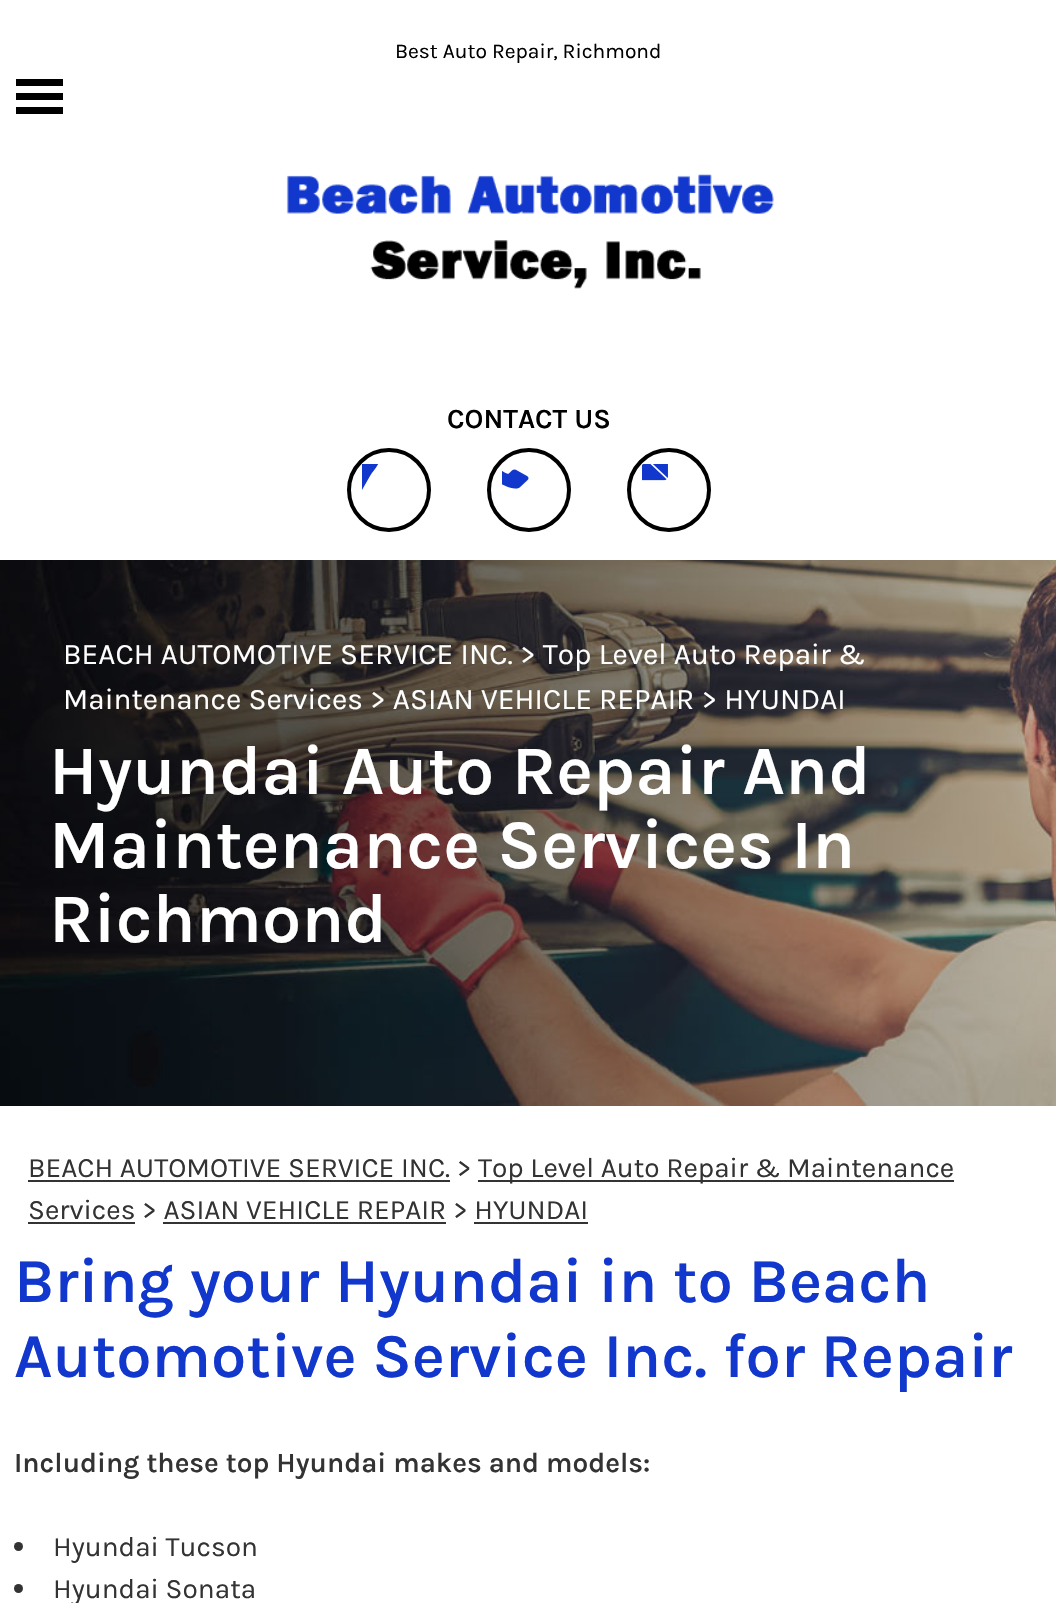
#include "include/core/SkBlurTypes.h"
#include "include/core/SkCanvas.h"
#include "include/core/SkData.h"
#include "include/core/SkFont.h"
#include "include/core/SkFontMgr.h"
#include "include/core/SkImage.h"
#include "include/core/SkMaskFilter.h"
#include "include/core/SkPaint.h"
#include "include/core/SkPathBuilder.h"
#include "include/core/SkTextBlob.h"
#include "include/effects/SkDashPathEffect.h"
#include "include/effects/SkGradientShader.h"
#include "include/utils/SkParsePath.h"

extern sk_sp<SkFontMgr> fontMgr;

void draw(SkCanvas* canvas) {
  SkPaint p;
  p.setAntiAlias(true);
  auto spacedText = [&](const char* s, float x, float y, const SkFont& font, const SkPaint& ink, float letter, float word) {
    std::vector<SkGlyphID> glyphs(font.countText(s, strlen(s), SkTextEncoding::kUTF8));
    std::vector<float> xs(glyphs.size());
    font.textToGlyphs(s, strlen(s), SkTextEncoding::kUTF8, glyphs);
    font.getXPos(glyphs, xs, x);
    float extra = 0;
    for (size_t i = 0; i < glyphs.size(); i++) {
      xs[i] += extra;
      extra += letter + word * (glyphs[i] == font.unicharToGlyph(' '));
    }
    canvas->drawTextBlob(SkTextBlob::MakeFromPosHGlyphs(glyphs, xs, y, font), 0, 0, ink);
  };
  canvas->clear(SK_ColorWHITE);
  p.setColor(SK_ColorBLACK);
  canvas->drawRect(SkRect::MakeLTRB(16, 79, 63, 86), p);
  canvas->drawRect(SkRect::MakeLTRB(16, 93, 63, 100), p);
  canvas->drawRect(SkRect::MakeLTRB(16, 107, 63, 114), p);
  canvas->drawImageRect(SkImages::DeferredFromEncodedData(SkData::MakeFromFileName("images/1.png")), SkRect::MakeLTRB(286, 174, 774, 289), SkSamplingOptions());
  p.setStyle(SkPaint::kStroke_Style);
  p.setStrokeWidth(4);
  canvas->drawCircle(389, 490, 40, p);
  canvas->save();
  canvas->clipRect(SkRect::MakeLTRB(362, 464, 415, 517));
  p.setStyle(SkPaint::kFill_Style);
  p.setColor(SkColorSetRGB(18, 55, 204));
  canvas->drawPath(SkPathBuilder().moveTo(380, 450).cubicTo(372, 426, 337, 437, 343, 459).cubicTo(344, 463, 347, 467, 350, 471).lineTo(362, 490).lineTo(370, 476).cubicTo(373, 471, 378, 466, 380, 460).cubicTo(381, 456, 381, 453, 380, 450).close().moveTo(361, 461).cubicTo(353, 461, 353, 447, 361, 447).cubicTo(371, 447, 371, 461, 361, 461).close().detach(), p);
  canvas->restore();
  p.setStyle(SkPaint::kStroke_Style);
  p.setColor(SK_ColorBLACK);
  canvas->drawCircle(529, 490, 40, p);
  canvas->drawImageRect(SkImages::DeferredFromEncodedData(SkData::MakeFromFileName("images/2.png")), SkRect::MakeLTRB(502, 469, 529, 489), SkSamplingOptions());
  canvas->drawCircle(669, 490, 40, p);
  canvas->drawImageRect(SkImages::DeferredFromEncodedData(SkData::MakeFromFileName("images/3.png")), SkRect::MakeLTRB(642, 464, 668, 481), SkSamplingOptions());
  canvas->drawImageRect(SkImages::DeferredFromEncodedData(SkData::MakeFromFileName("images/4.png")), SkRect::MakeLTRB(0, 560, 1056, 1106), SkSamplingOptions());
  p.setStyle(SkPaint::kFill_Style);
  p.setColor(SkColorSetRGB(51, 51, 51));
  canvas->drawRect(SkRect::MakeLTRB(28, 1180, 450, 1182), p);
  canvas->drawRect(SkRect::MakeLTRB(478, 1180, 954, 1182), p);
  canvas->drawRect(SkRect::MakeLTRB(28, 1222, 135, 1224), p);
  canvas->drawRect(SkRect::MakeLTRB(163, 1222, 446, 1224), p);
  canvas->drawRect(SkRect::MakeLTRB(474, 1222, 588, 1224), p);
  canvas->drawCircle(18.5f, 1546.5f, 4.5f, p);
  canvas->drawCircle(18.5f, 1588.5f, 4.5f, p);
  SkFont font1(fontMgr->matchFamilyStyle("Karla", SkFontStyle::Normal()), 21);
  font1.setSubpixel(true);
  p.setColor(SK_ColorBLACK);
  canvas->drawString("Best Auto Repair, Richmond", 395, 58, font1, p);
  SkFont font2(fontMgr->matchFamilyStyle("Karla", SkFontStyle(600, SkFontStyle::kNormal_Width, SkFontStyle::kUpright_Slant)), 28);
  font2.setSubpixel(true);
  canvas->drawString("CONTACT US", 447, 428, font2, p);
  SkFont font3(fontMgr->matchFamilyStyle("Karla", SkFontStyle::Normal()), 29.75f);
  font3.setSubpixel(true);
  p.setColor(SK_ColorWHITE);
  spacedText("BEACH AUTOMOTIVE SERVICE INC. > Top Level Auto Repair &", 63, 664, font3, p, 0.05f, 0);
  spacedText("Maintenance Services > ASIAN VEHICLE REPAIR > HYUNDAI", 63, 709, font3, p, 0.05f, 0);
  SkFont font4(fontMgr->matchFamilyStyle("Karla", SkFontStyle(600, SkFontStyle::kNormal_Width, SkFontStyle::kUpright_Slant)), 70);
  font4.setSubpixel(true);
  canvas->drawString("Hyundai Auto Repair And", 49, 794, font4, p);
  canvas->drawString("Maintenance Services In", 49, 868, font4, p);
  canvas->drawString("Richmond", 49, 942, font4, p);
  SkFont font5(fontMgr->matchFamilyStyle("Karla", SkFontStyle::Normal()), 28);
  font5.setSubpixel(true);
  p.setColor(SkColorSetRGB(51, 51, 51));
  canvas->drawString("BEACH AUTOMOTIVE SERVICE INC. >", 28, 1177, font5, p);
  canvas->drawString("Top Level Auto Repair & Maintenance", 478, 1177, font5, p);
  canvas->drawString("Services > ASIAN VEHICLE REPAIR > HYUNDAI", 28, 1219, font5, p);
  SkFont font6(fontMgr->matchFamilyStyle("Karla", SkFontStyle(600, SkFontStyle::kNormal_Width, SkFontStyle::kUpright_Slant)), 63);
  font6.setSubpixel(true);
  p.setColor(SkColorSetRGB(18, 55, 204));
  canvas->drawString("Bring your Hyundai in to Beach", 14, 1302, font6, p);
  canvas->drawString("Automotive Service Inc. for Repair", 14, 1377, font6, p);
  p.setColor(SkColorSetRGB(51, 51, 51));
  canvas->drawString("Including these top Hyundai makes and models:", 14, 1472, font2, p);
  canvas->drawString("Hyundai Tucson", 53, 1556, font5, p);
  canvas->drawString("Hyundai Sonata", 53, 1598, font5, p);
}
